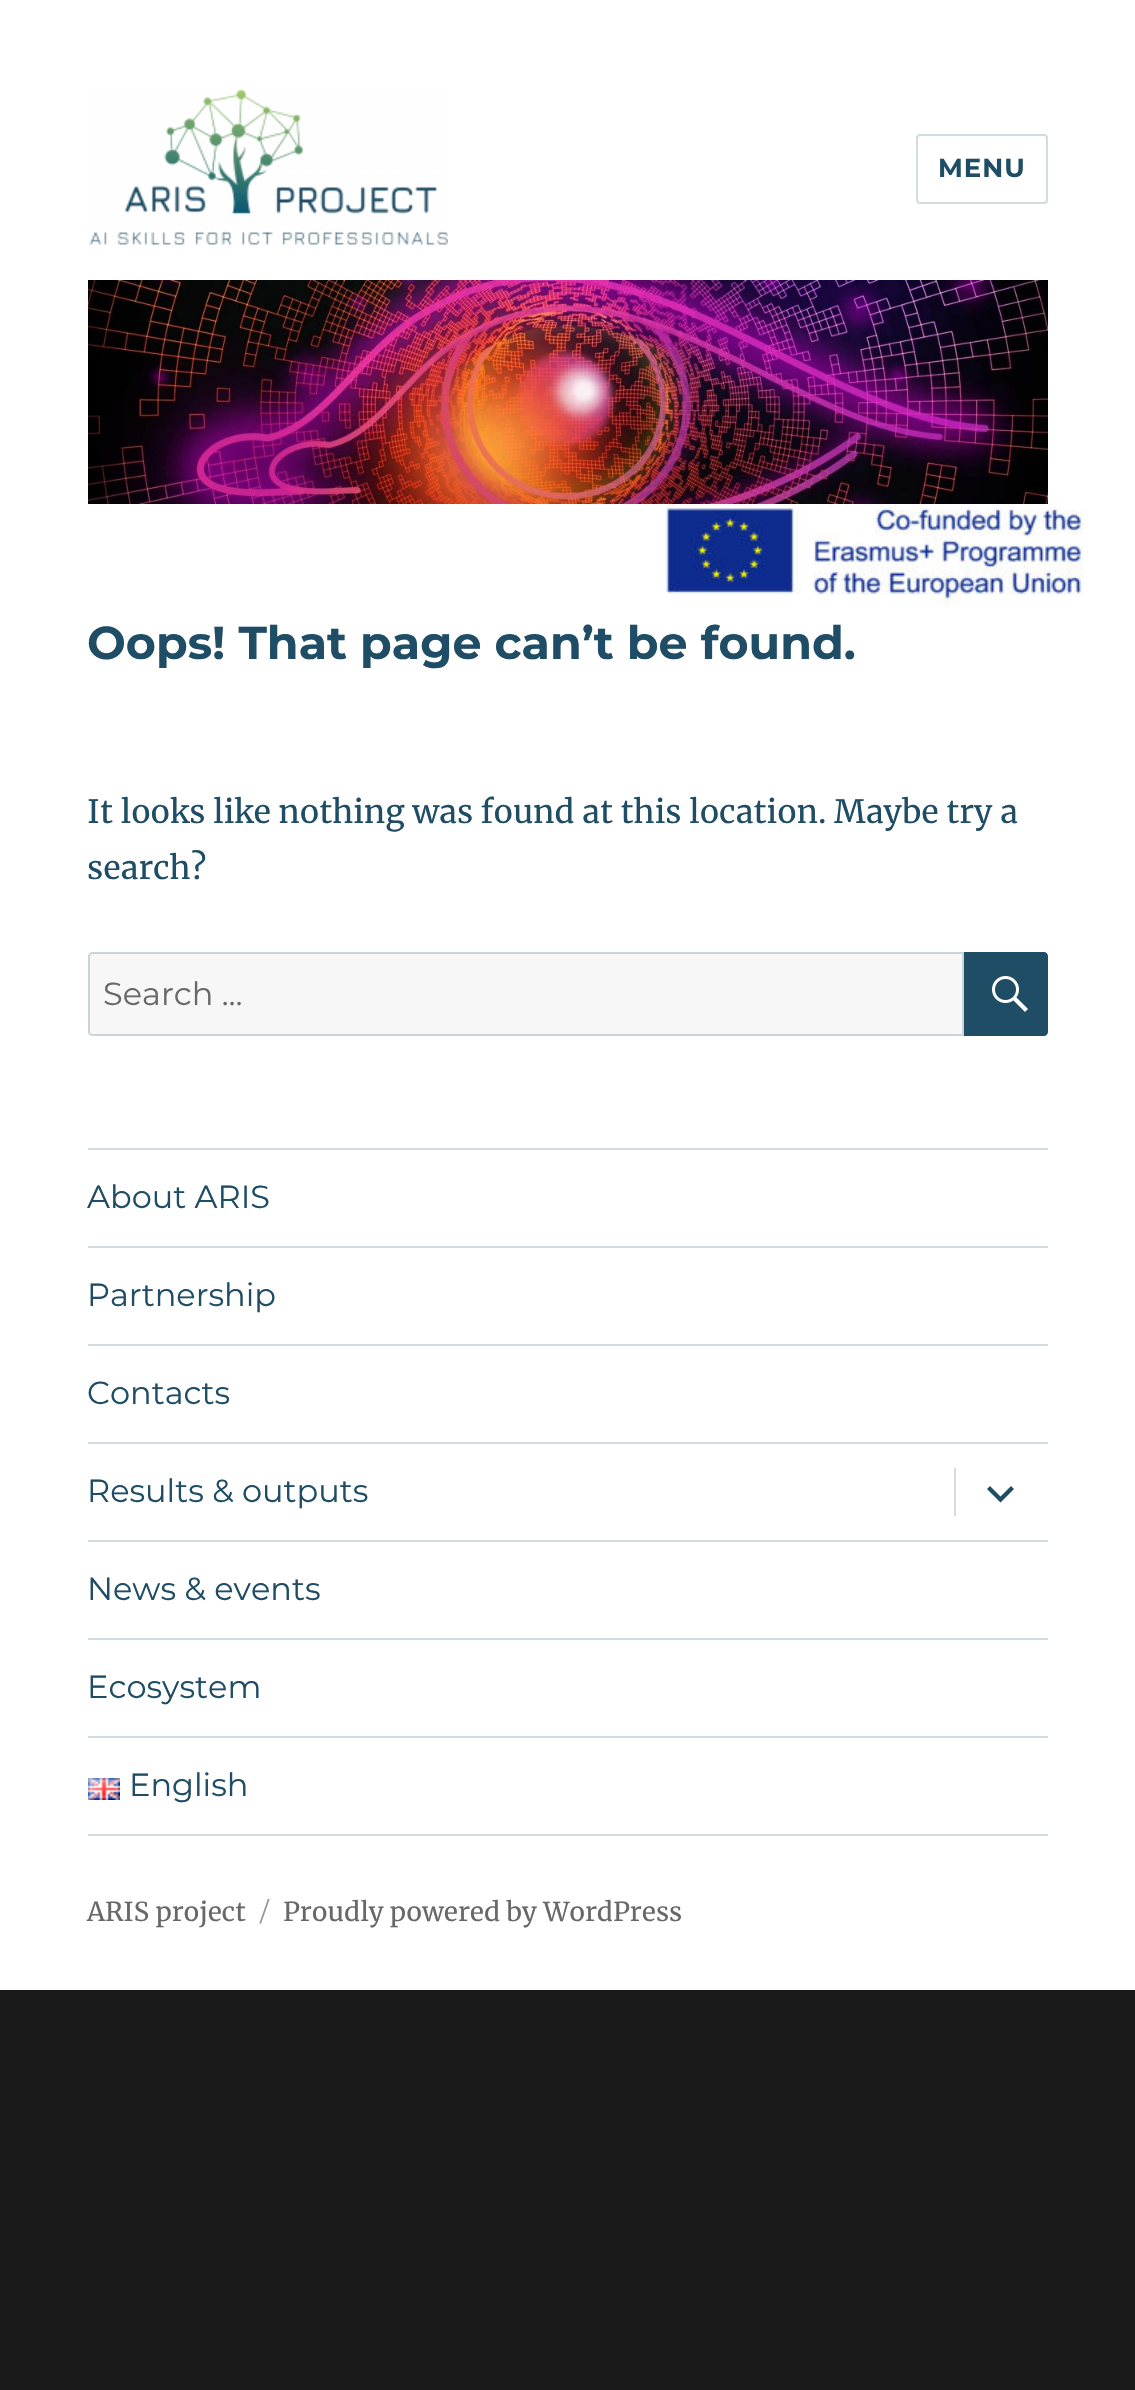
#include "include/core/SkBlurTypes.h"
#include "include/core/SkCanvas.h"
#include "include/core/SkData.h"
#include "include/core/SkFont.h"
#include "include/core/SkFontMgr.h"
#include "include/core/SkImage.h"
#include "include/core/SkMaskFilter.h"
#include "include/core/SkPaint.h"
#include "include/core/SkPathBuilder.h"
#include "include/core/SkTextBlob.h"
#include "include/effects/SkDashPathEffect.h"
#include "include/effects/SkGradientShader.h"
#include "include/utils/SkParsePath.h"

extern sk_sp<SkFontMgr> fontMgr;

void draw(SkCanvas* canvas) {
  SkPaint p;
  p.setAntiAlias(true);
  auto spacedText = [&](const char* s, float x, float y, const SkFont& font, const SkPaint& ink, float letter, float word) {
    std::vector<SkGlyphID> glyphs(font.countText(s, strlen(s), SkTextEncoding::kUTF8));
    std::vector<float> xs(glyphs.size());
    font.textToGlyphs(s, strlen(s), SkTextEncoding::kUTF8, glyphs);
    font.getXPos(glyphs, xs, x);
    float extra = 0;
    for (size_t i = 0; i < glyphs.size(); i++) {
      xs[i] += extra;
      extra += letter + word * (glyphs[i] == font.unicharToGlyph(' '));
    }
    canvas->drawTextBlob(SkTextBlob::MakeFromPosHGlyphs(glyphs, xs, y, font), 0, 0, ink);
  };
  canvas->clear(SkColorSetRGB(26, 26, 26));
  p.setColor(SK_ColorWHITE);
  canvas->drawRect(SkRect::MakeLTRB(0, 0, 1135, 1990), p);
  canvas->drawImageRect(SkImages::DeferredFromEncodedData(SkData::MakeFromFileName("images/1.png")), SkRect::MakeLTRB(666, 498, 1084, 607), SkSamplingOptions());
  canvas->drawImageRect(SkImages::DeferredFromEncodedData(SkData::MakeFromFileName("images/2.png")), SkRect::MakeLTRB(89, 89, 448, 245), SkSamplingOptions());
  p.setStyle(SkPaint::kStroke_Style);
  p.setStrokeWidth(2);
  p.setColor(SkColorSetRGB(210, 219, 224));
  canvas->drawRoundRect(SkRect::MakeLTRB(917, 135, 1047, 203), 3, 3, p);
  canvas->drawImageRect(SkImages::DeferredFromEncodedData(SkData::MakeFromFileName("images/3.png")), SkRect::MakeLTRB(88, 280, 1048, 504), SkSamplingOptions());
  p.setStyle(SkPaint::kFill_Style);
  p.setColor(SkColorSetRGB(247, 247, 247));
  canvas->drawPath(SkPathBuilder().moveTo(92, 952).lineTo(964, 952).lineTo(964, 1036).lineTo(92, 1036).cubicTo(90, 1036, 88, 1034, 88, 1032).lineTo(88, 956).cubicTo(88, 954, 90, 952, 92, 952).close().detach(), p);
  p.setStyle(SkPaint::kStroke_Style);
  p.setColor(SkColorSetARGB(51, 30, 77, 101));
  canvas->drawPath(SkPathBuilder().moveTo(92, 953).lineTo(963, 953).lineTo(963, 1035).lineTo(92, 1035).cubicTo(90.5f, 1035, 89, 1033.5f, 89, 1032).lineTo(89, 956).cubicTo(89, 954.5f, 90.5f, 953, 92, 953).close().detach(), p);
  p.setStyle(SkPaint::kFill_Style);
  p.setColor(SkColorSetRGB(30, 77, 101));
  canvas->drawPath(SkPathBuilder().moveTo(964, 952).lineTo(1044, 952).cubicTo(1046, 952, 1048, 954, 1048, 956).lineTo(1048, 1032).cubicTo(1048, 1034, 1046, 1036, 1044, 1036).lineTo(964, 1036).close().detach(), p);
  canvas->drawImageRect(SkImages::DeferredFromEncodedData(SkData::MakeFromFileName("images/4.png")), SkRect::MakeLTRB(992, 976, 1028, 1012), SkSamplingOptions());
  p.setColor(SkColorSetRGB(210, 219, 224));
  canvas->drawRect(SkRect::MakeLTRB(88, 1834, 1048, 1836), p);
  canvas->drawRect(SkRect::MakeLTRB(88, 1148, 1048, 1150), p);
  canvas->drawRect(SkRect::MakeLTRB(88, 1246, 1048, 1248), p);
  canvas->drawRect(SkRect::MakeLTRB(88, 1344, 1048, 1346), p);
  canvas->drawRect(SkRect::MakeLTRB(88, 1442, 1048, 1444), p);
  canvas->drawRect(SkRect::MakeLTRB(954, 1468, 956, 1516), p);
  p.setColor(SkColorSetRGB(30, 77, 101));
  canvas->drawPath(SkPathBuilder().moveTo(1011, 1486).lineTo(1014, 1489).lineTo(1000.5f, 1502.5f).lineTo(987, 1489).lineTo(990, 1486).lineTo(1000.5f, 1496.5f).close().detach(), p);
  p.setColor(SkColorSetRGB(210, 219, 224));
  canvas->drawRect(SkRect::MakeLTRB(88, 1540, 1048, 1542), p);
  canvas->drawRect(SkRect::MakeLTRB(88, 1638, 1048, 1640), p);
  canvas->drawRect(SkRect::MakeLTRB(88, 1736, 1048, 1738), p);
  canvas->drawImageRect(SkImages::DeferredFromEncodedData(SkData::MakeFromFileName("images/5.png")), SkRect::MakeLTRB(88, 1778, 120, 1800), SkSamplingOptions());
  SkFont font1(fontMgr->matchFamilyStyle("Montserrat", SkFontStyle(100, SkFontStyle::kNormal_Width, SkFontStyle::kUpright_Slant)), 26);
  font1.setSubpixel(true);
  p.setColor(SkColorSetRGB(30, 77, 101));
  spacedText("MENU", 938, 177, font1, p, 1, 0);
  SkFont font2(fontMgr->matchFamilyStyle("Montserrat", SkFontStyle(100, SkFontStyle::kNormal_Width, SkFontStyle::kUpright_Slant)), 46);
  font2.setSubpixel(true);
  canvas->drawString("Oops! That page can’t be found.", 87, 659, font2, p);
  SkFont font3(fontMgr->matchFamilyStyle("Merriweather", SkFontStyle::Normal()), 32);
  font3.setSubpixel(true);
  canvas->drawString("It looks like nothing was found at this location. Maybe try a", 87, 823, font3, p);
  canvas->drawString("search?", 87, 879, font3, p);
  SkFont font4(fontMgr->matchFamilyStyle("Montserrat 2", SkFontStyle(100, SkFontStyle::kNormal_Width, SkFontStyle::kUpright_Slant)), 32);
  font4.setSubpixel(true);
  p.setColor(SkColorSetRGB(104, 104, 104));
  canvas->drawString("Search …", 103, 1005, font4, p);
  p.setColor(SkColorSetRGB(30, 77, 101));
  canvas->drawString("About ARIS", 87, 1208, font4, p);
  canvas->drawString("Partnership", 87, 1306, font4, p);
  canvas->drawString("Contacts", 87, 1404, font4, p);
  canvas->drawString("Results & outputs", 87, 1502, font4, p);
  canvas->drawString("News & events", 87, 1600, font4, p);
  canvas->drawString("Ecosystem", 87, 1698, font4, p);
  canvas->drawString("English", 129, 1796, font4, p);
  SkFont font5(fontMgr->matchFamilyStyle("Merriweather", SkFontStyle::Normal()), 26);
  font5.setSubpixel(true);
  p.setColor(SkColorSetRGB(104, 104, 104));
  canvas->drawString("ARIS project", 87, 1921, font5, p);
  SkFont font6(fontMgr->matchFamilyStyle("Montserrat 2", SkFontStyle(100, SkFontStyle::kNormal_Width, SkFontStyle::kUpright_Slant)), 26);
  font6.setSubpixel(true);
  p.setColor(SkColorSetRGB(149, 149, 149));
  canvas->drawString("/", 260, 1921, font6, p);
  p.setColor(SkColorSetRGB(104, 104, 104));
  canvas->drawString("Proudly powered by WordPress", 283, 1921, font5, p);
}
